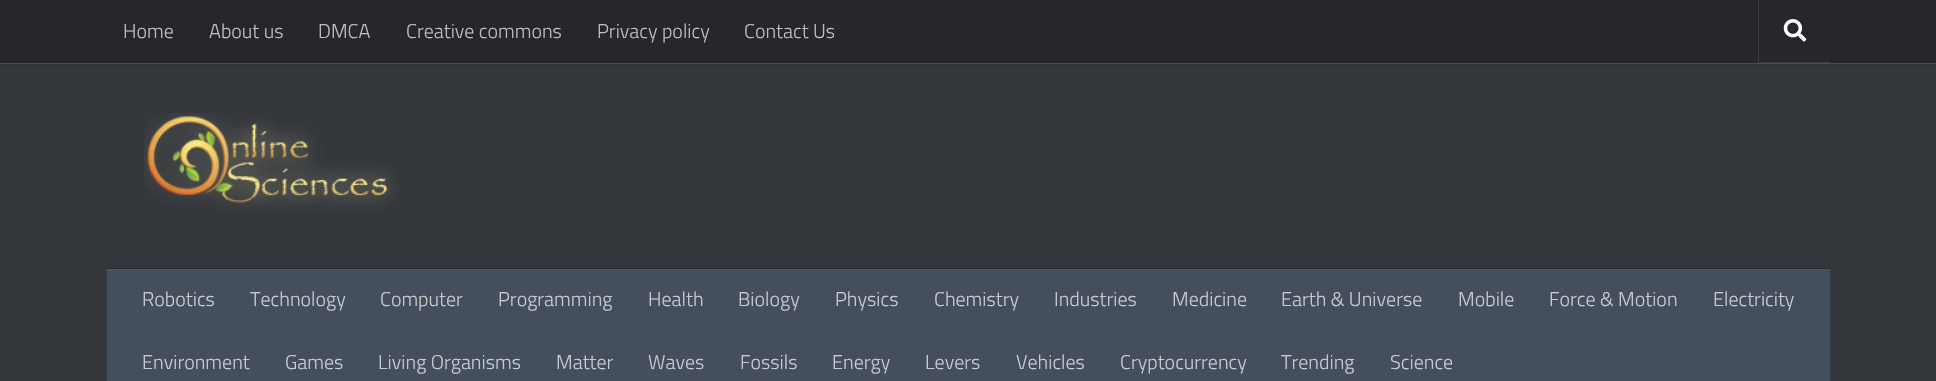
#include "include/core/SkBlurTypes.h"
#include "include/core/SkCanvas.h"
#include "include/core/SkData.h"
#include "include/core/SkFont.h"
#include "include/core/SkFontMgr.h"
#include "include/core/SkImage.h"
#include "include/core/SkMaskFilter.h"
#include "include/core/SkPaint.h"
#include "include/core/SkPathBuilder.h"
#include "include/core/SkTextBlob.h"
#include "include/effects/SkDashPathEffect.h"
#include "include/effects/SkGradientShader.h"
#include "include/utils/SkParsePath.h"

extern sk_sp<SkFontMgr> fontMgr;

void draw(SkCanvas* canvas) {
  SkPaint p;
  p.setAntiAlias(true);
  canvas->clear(SkColorSetRGB(51, 54, 59));
  p.setColor(SkColorSetRGB(82, 84, 88));
  canvas->drawRect(SkRect::MakeLTRB(0, 63, 1936, 64), p);
  p.setColor(SkColorSetARGB(51, 0, 0, 0));
  p.setMaskFilter(SkMaskFilter::MakeBlur(kNormal_SkBlurStyle, 3));
  canvas->drawRect(SkRect::MakeLTRB(0, 0, 1936, 63), p);
  p.setMaskFilter(nullptr);
  p.setColor(SkColorSetRGB(38, 39, 43));
  canvas->drawRect(SkRect::MakeLTRB(0, 0, 1936, 63), p);
  p.setColor(SkColorSetRGB(60, 61, 64));
  canvas->drawPath(SkPathBuilder().moveTo(1758, 0).lineTo(1758, 63).lineTo(1830, 63).lineTo(1830, 62).lineTo(1759, 62).lineTo(1759, 0).close().detach(), p);
  canvas->drawImageRect(SkImages::DeferredFromEncodedData(SkData::MakeFromFileName("images/1.png")), SkRect::MakeLTRB(1783, 19, 1807, 42), SkSamplingOptions());
  canvas->drawImageRect(SkImages::DeferredFromEncodedData(SkData::MakeFromFileName("images/2.png")), SkRect::MakeLTRB(144, 113, 399, 212), SkSamplingOptions());
  p.setColor(SkColorSetRGB(41, 43, 47));
  canvas->drawPath(SkPathBuilder().moveTo(106, 268).lineTo(106, 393).lineTo(106, 269).lineTo(1831, 269).lineTo(1831, 268).close().detach(), p);
  p.setColor(SkColorSetRGB(69, 78, 92));
  canvas->drawRect(SkRect::MakeLTRB(107, 270, 1830, 381), p);
  p.setColor(SkColorSetRGB(78, 87, 100));
  canvas->drawRect(SkRect::MakeLTRB(106, 269, 1831, 270), p);
  p.setColor(SkColorSetRGB(55, 62, 74));
  canvas->drawRect(SkRect::MakeLTRB(1830, 269, 1831, 381), p);
  p.setColor(SkColorSetRGB(65, 72, 83));
  canvas->drawRect(SkRect::MakeLTRB(1830, 269, 1831, 270), p);
  p.setColor(SkColorSetRGB(55, 62, 74));
  canvas->drawRect(SkRect::MakeLTRB(106, 269, 107, 381), p);
  p.setColor(SkColorSetRGB(65, 72, 83));
  canvas->drawRect(SkRect::MakeLTRB(106, 269, 107, 270), p);
  SkFont font1(fontMgr->matchFamilyStyle("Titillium", SkFontStyle(300, SkFontStyle::kNormal_Width, SkFontStyle::kUpright_Slant)), 20);
  font1.setSubpixel(true);
  p.setColor(SkColorSetRGB(190, 190, 191));
  canvas->drawString("Home", 123, 38, font1, p);
  canvas->drawString("About us", 209, 38, font1, p);
  canvas->drawString("DMCA", 318, 38, font1, p);
  canvas->drawString("Creative commons", 406, 38, font1, p);
  canvas->drawString("Privacy policy", 597, 38, font1, p);
  canvas->drawString("Contact Us", 744, 38, font1, p);
  p.setColor(SkColorSetRGB(199, 202, 206));
  canvas->drawString("Robotics", 142, 306, font1, p);
  canvas->drawString("Technology", 250, 306, font1, p);
  canvas->drawString("Computer", 380, 306, font1, p);
  canvas->drawString("Programming", 498, 306, font1, p);
  canvas->drawString("Health", 648, 306, font1, p);
  canvas->drawString("Biology", 738, 306, font1, p);
  canvas->drawString("Physics", 835, 306, font1, p);
  canvas->drawString("Chemistry", 934, 306, font1, p);
  canvas->drawString("Industries", 1054, 306, font1, p);
  canvas->drawString("Medicine", 1172, 306, font1, p);
  canvas->drawString("Earth & Universe", 1281, 306, font1, p);
  canvas->drawString("Mobile", 1458, 306, font1, p);
  canvas->drawString("Force & Motion", 1549, 306, font1, p);
  canvas->drawString("Electricity", 1713, 306, font1, p);
  canvas->drawString("Environment", 142, 369, font1, p);
  canvas->drawString("Games", 285, 369, font1, p);
  canvas->drawString("Living Organisms", 378, 369, font1, p);
  canvas->drawString("Matter", 556, 369, font1, p);
  canvas->drawString("Waves", 648, 369, font1, p);
  canvas->drawString("Fossils", 740, 369, font1, p);
  canvas->drawString("Energy", 832, 369, font1, p);
  canvas->drawString("Levers", 925, 369, font1, p);
  canvas->drawString("Vehicles", 1016, 369, font1, p);
  canvas->drawString("Cryptocurrency", 1120, 369, font1, p);
  canvas->drawString("Trending", 1281, 369, font1, p);
  canvas->drawString("Science", 1390, 369, font1, p);
}
